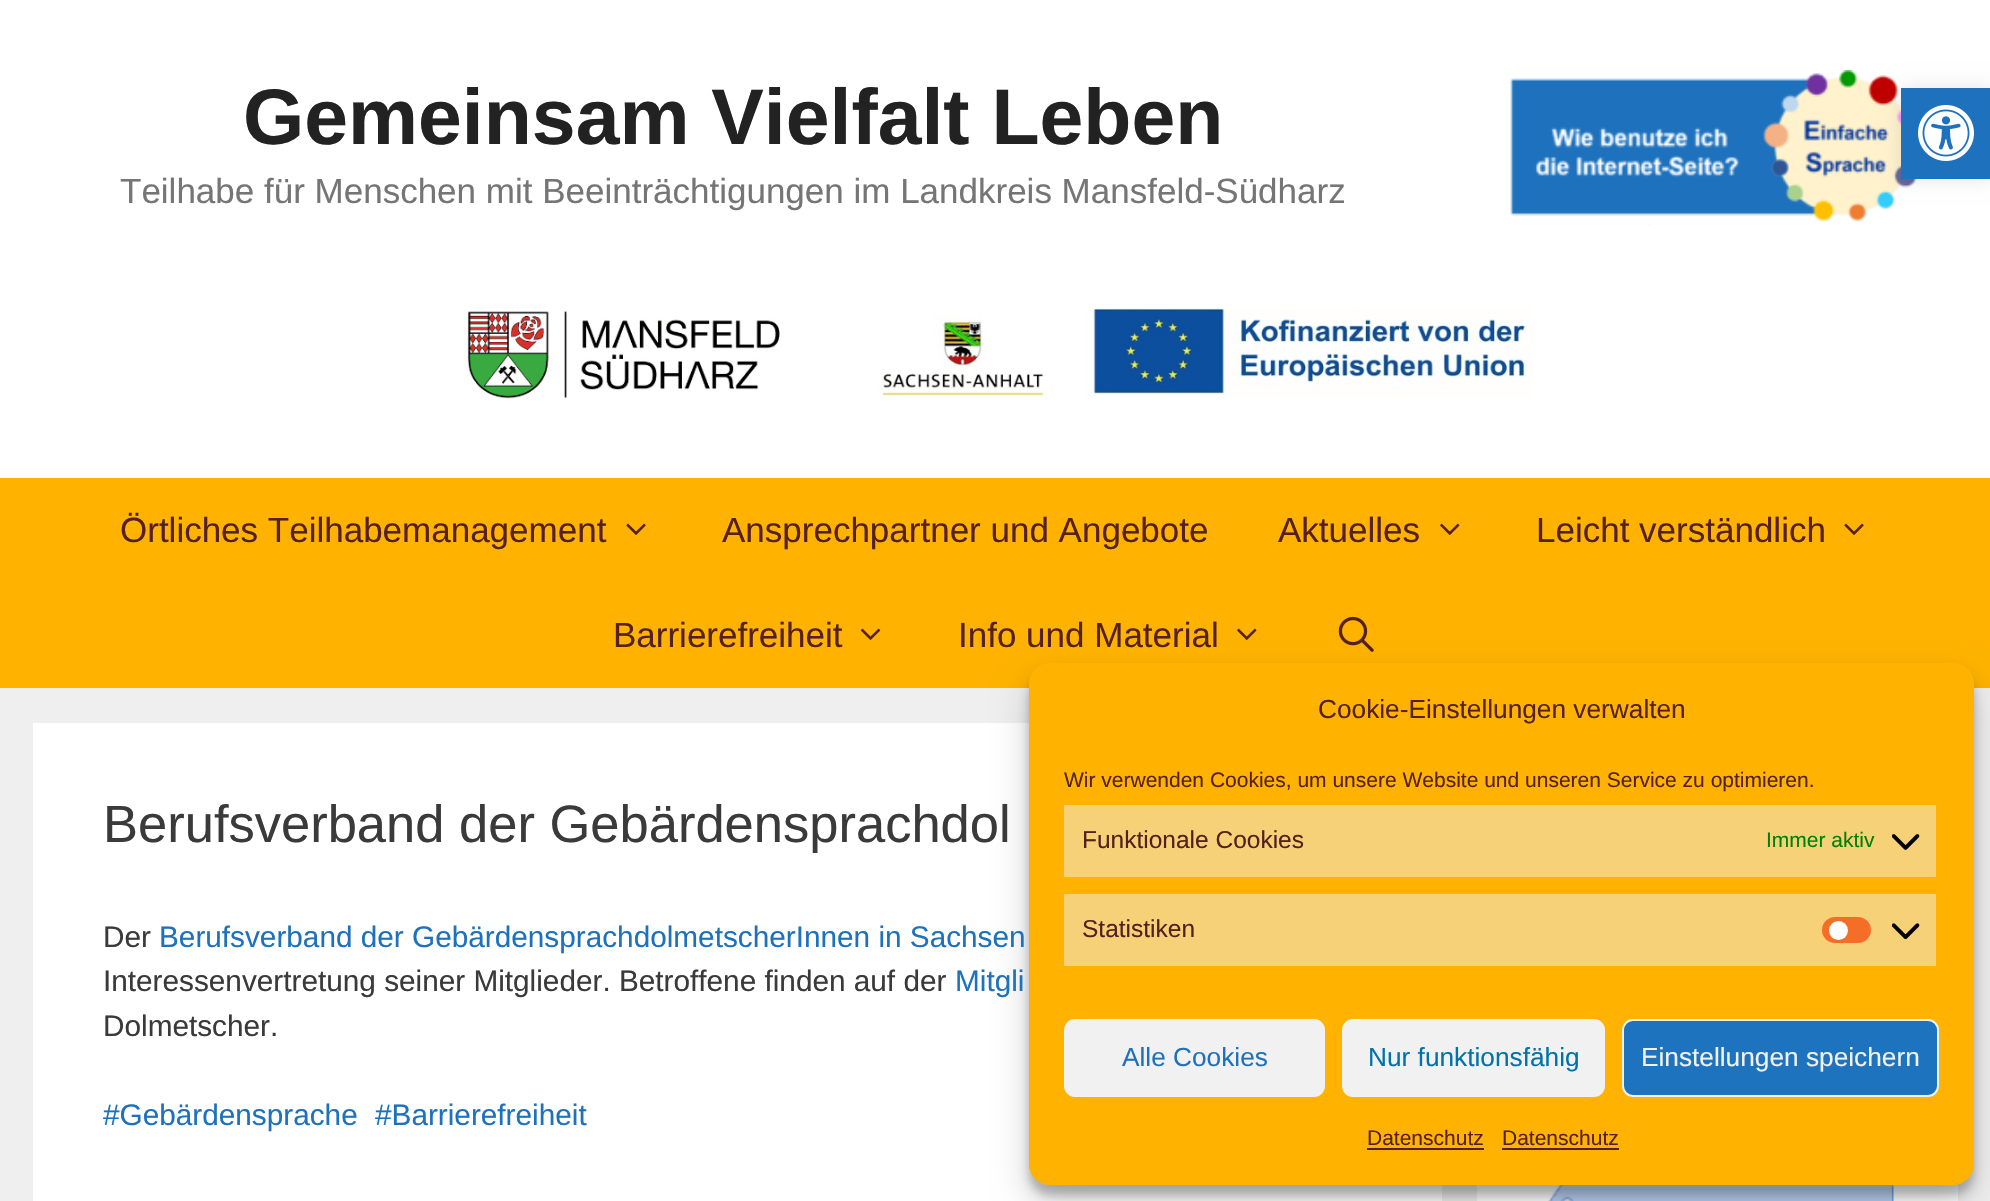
#include "include/core/SkBlurTypes.h"
#include "include/core/SkCanvas.h"
#include "include/core/SkData.h"
#include "include/core/SkFont.h"
#include "include/core/SkFontMgr.h"
#include "include/core/SkImage.h"
#include "include/core/SkMaskFilter.h"
#include "include/core/SkPaint.h"
#include "include/core/SkPathBuilder.h"
#include "include/core/SkTextBlob.h"
#include "include/effects/SkDashPathEffect.h"
#include "include/effects/SkGradientShader.h"
#include "include/utils/SkParsePath.h"

extern sk_sp<SkFontMgr> fontMgr;

void draw(SkCanvas* canvas) {
  SkPaint p;
  p.setAntiAlias(true);
  canvas->clear(SkColorSetRGB(239, 239, 239));
  p.setColor(SK_ColorWHITE);
  canvas->drawRect(SkRect::MakeLTRB(0, 0, 1990, 478), p);
  canvas->drawImageRect(SkImages::DeferredFromEncodedData(SkData::MakeFromFileName("images/1.png")), SkRect::MakeLTRB(1510, 70, 1922, 226), SkSamplingOptions());
  canvas->drawImageRect(SkImages::DeferredFromEncodedData(SkData::MakeFromFileName("images/2.png")), SkRect::MakeLTRB(467, 307, 1533, 400), SkSamplingOptions());
  p.setColor(SkColorSetARGB(26, 0, 0, 0));
  p.setMaskFilter(SkMaskFilter::MakeBlur(kNormal_SkBlurStyle, 9));
  canvas->drawRect(SkRect::MakeLTRB(1901, 88, 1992, 179), p);
  p.setMaskFilter(nullptr);
  p.setColor(SkColorSetRGB(30, 114, 189));
  canvas->drawRect(SkRect::MakeLTRB(1901, 88, 1990, 179), p);
  canvas->drawImageRect(SkImages::DeferredFromEncodedData(SkData::MakeFromFileName("images/3.png")), SkRect::MakeLTRB(1918, 105, 1974, 161), SkSamplingOptions());
  p.setColor(SkColorSetRGB(255, 179, 0));
  canvas->drawRect(SkRect::MakeLTRB(0, 478, 1990, 688), p);
  canvas->drawImageRect(SkImages::DeferredFromEncodedData(SkData::MakeFromFileName("images/4.png")), SkRect::MakeLTRB(626, 523, 646, 535), SkSamplingOptions());
  canvas->drawImageRect(SkImages::DeferredFromEncodedData(SkData::MakeFromFileName("images/5.png")), SkRect::MakeLTRB(1440, 523, 1460, 535), SkSamplingOptions());
  canvas->drawImageRect(SkImages::DeferredFromEncodedData(SkData::MakeFromFileName("images/4.png")), SkRect::MakeLTRB(1844, 523, 1864, 535), SkSamplingOptions());
  canvas->drawImageRect(SkImages::DeferredFromEncodedData(SkData::MakeFromFileName("images/6.png")), SkRect::MakeLTRB(860, 628, 881, 640), SkSamplingOptions());
  canvas->drawImageRect(SkImages::DeferredFromEncodedData(SkData::MakeFromFileName("images/5.png")), SkRect::MakeLTRB(1237, 628, 1257, 640), SkSamplingOptions());
  canvas->drawImageRect(SkImages::DeferredFromEncodedData(SkData::MakeFromFileName("images/7.png")), SkRect::MakeLTRB(1338, 616, 1374, 652), SkSamplingOptions());
  p.setColor(SK_ColorWHITE);
  canvas->drawRect(SkRect::MakeLTRB(33, 723, 1442, 1201), p);
  canvas->drawRect(SkRect::MakeLTRB(1477, 1184, 1958, 1201), p);
  canvas->drawImageRect(SkImages::DeferredFromEncodedData(SkData::MakeFromFileName("images/8.png")), SkRect::MakeLTRB(1548, 1185, 1892, 1201), SkSamplingOptions());
  canvas->drawImageRect(SkImages::DeferredFromEncodedData(SkData::MakeFromFileName("images/9.png")), SkRect::MakeLTRB(1891, 1185, 1894, 1201), SkSamplingOptions());
  p.setColor(SkColorSetARGB(59, 0, 0, 0));
  p.setMaskFilter(SkMaskFilter::MakeBlur(kNormal_SkBlurStyle, 5));
  canvas->drawRoundRect(SkRect::MakeLTRB(1029, 674, 1974, 1195), 21, 21, p);
  p.setMaskFilter(nullptr);
  p.setColor(SkColorSetARGB(48, 0, 0, 0));
  p.setMaskFilter(SkMaskFilter::MakeBlur(kNormal_SkBlurStyle, 17.5f));
  canvas->drawRoundRect(SkRect::MakeLTRB(1029, 681, 1974, 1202), 21, 21, p);
  p.setMaskFilter(nullptr);
  p.setColor(SkColorSetRGB(255, 179, 0));
  canvas->drawRoundRect(SkRect::MakeLTRB(1029, 663, 1974, 1185), 21, 21, p);
  p.setColor(SkColorSetRGB(247, 209, 120));
  canvas->drawRect(SkRect::MakeLTRB(1064, 805, 1936, 877), p);
  canvas->drawImageRect(SkImages::DeferredFromEncodedData(SkData::MakeFromFileName("images/10.png")), SkRect::MakeLTRB(1892, 834, 1920, 850), SkSamplingOptions());
  canvas->drawRect(SkRect::MakeLTRB(1064, 894, 1936, 966), p);
  p.setColor(SkColorSetRGB(245, 110, 40));
  canvas->drawRoundRect(SkRect::MakeLTRB(1822, 917, 1871, 943), 13, 13, p);
  p.setColor(SK_ColorWHITE);
  canvas->drawCircle(1838.5f, 930.5f, 9.5f, p);
  canvas->drawImageRect(SkImages::DeferredFromEncodedData(SkData::MakeFromFileName("images/11.png")), SkRect::MakeLTRB(1892, 923, 1920, 940), SkSamplingOptions());
  p.setColor(SkColorSetRGB(241, 241, 241));
  canvas->drawRoundRect(SkRect::MakeLTRB(1065, 1020, 1324, 1096), 10, 10, p);
  p.setStyle(SkPaint::kStroke_Style);
  p.setStrokeWidth(2);
  canvas->drawRoundRect(SkRect::MakeLTRB(1065, 1020, 1324, 1096), 10, 10, p);
  p.setStyle(SkPaint::kFill_Style);
  canvas->drawRoundRect(SkRect::MakeLTRB(1343, 1020, 1604, 1096), 10, 10, p);
  p.setStyle(SkPaint::kStroke_Style);
  canvas->drawRoundRect(SkRect::MakeLTRB(1343, 1020, 1604, 1096), 10, 10, p);
  p.setStyle(SkPaint::kFill_Style);
  p.setColor(SkColorSetRGB(30, 115, 190));
  canvas->drawRoundRect(SkRect::MakeLTRB(1623, 1020, 1938, 1096), 10, 10, p);
  p.setStyle(SkPaint::kStroke_Style);
  p.setColor(SkColorSetRGB(241, 241, 241));
  canvas->drawRoundRect(SkRect::MakeLTRB(1623, 1020, 1938, 1096), 10, 10, p);
  p.setStyle(SkPaint::kFill_Style);
  p.setColor(SkColorSetRGB(85, 33, 28));
  canvas->drawRect(SkRect::MakeLTRB(1367, 1148, 1484, 1150), p);
  canvas->drawRect(SkRect::MakeLTRB(1502, 1148, 1619, 1150), p);
  SkFont font1(fontMgr->matchFamilyStyle("Liberation Sans", SkFontStyle::Bold()), 78.75f);
  font1.setSubpixel(true);
  p.setColor(SkColorSetRGB(34, 34, 34));
  canvas->drawString("Gemeinsam Vielfalt Leben", 243, 144, font1, p);
  SkFont font2(fontMgr->matchFamilyStyle("Liberation Sans", SkFontStyle::Normal()), 35);
  font2.setSubpixel(true);
  p.setColor(SkColorSetRGB(117, 117, 117));
  canvas->drawString("Teilhabe für Menschen mit Beeinträchtigungen im Landkreis Mansfeld-Südharz", 120, 203, font2, p);
  p.setColor(SkColorSetRGB(85, 33, 28));
  canvas->drawString("Örtliches Teilhabemanagement", 120, 542, font2, p);
  canvas->drawString("Ansprechpartner und Angebote", 722, 542, font2, p);
  canvas->drawString("Aktuelles", 1278, 542, font2, p);
  canvas->drawString("Leicht verständlich", 1536, 542, font2, p);
  canvas->drawString("Barrierefreiheit", 613, 647, font2, p);
  canvas->drawString("Info und Material", 958, 647, font2, p);
  SkFont font3(fontMgr->matchFamilyStyle("Liberation Sans", SkFontStyle::Normal()), 52.5f);
  font3.setSubpixel(true);
  p.setColor(SkColorSetRGB(58, 58, 58));
  canvas->drawString("Berufsverband der Gebärdensprachdol", 103, 842, font3, p);
  SkFont font4(fontMgr->matchFamilyStyle("Liberation Sans", SkFontStyle::Normal()), 29.75f);
  font4.setSubpixel(true);
  canvas->drawString("Der", 103, 947, font4, p);
  p.setColor(SkColorSetRGB(30, 114, 189));
  canvas->drawString("Berufsverband der GebärdensprachdolmetscherInnen in Sachsen", 159, 947, font4, p);
  p.setColor(SkColorSetRGB(58, 58, 58));
  canvas->drawString("Interessenvertretung seiner Mitglieder. Betroffene finden auf der", 103, 991, font4, p);
  p.setColor(SkColorSetRGB(30, 114, 189));
  canvas->drawString("Mitgli", 955, 991, font4, p);
  p.setColor(SkColorSetRGB(58, 58, 58));
  canvas->drawString("Dolmetscher.", 103, 1036, font4, p);
  p.setColor(SkColorSetRGB(30, 114, 189));
  canvas->drawString("#Gebärdensprache", 103, 1125, font4, p);
  canvas->drawString("#Barrierefreiheit", 375, 1125, font4, p);
  SkFont font5(fontMgr->matchFamilyStyle("Liberation Sans", SkFontStyle::Normal()), 26.25f);
  font5.setSubpixel(true);
  p.setColor(SkColorSetRGB(85, 33, 28));
  canvas->drawString("Cookie-Einstellungen verwalten", 1318, 718, font5, p);
  SkFont font6(fontMgr->matchFamilyStyle("Liberation Sans", SkFontStyle::Normal()), 21);
  font6.setSubpixel(true);
  canvas->drawString("Wir verwenden Cookies, um unsere Website und unseren Service zu optimieren.", 1064, 787, font6, p);
  SkFont font7(fontMgr->matchFamilyStyle("Liberation Sans", SkFontStyle::Normal()), 24.5f);
  font7.setSubpixel(true);
  canvas->drawString("Funktionale Cookies", 1082, 848, font7, p);
  p.setColor(SkColorSetRGB(0, 128, 0));
  canvas->drawString("Immer aktiv", 1766, 847, font6, p);
  p.setColor(SkColorSetRGB(85, 33, 28));
  canvas->drawString("Statistiken", 1082, 937, font7, p);
  p.setColor(SkColorSetRGB(30, 114, 189));
  canvas->drawString("Alle Cookies", 1122, 1066, font5, p);
  p.setColor(SkColorSetRGB(0, 115, 170));
  canvas->drawString("Nur funktionsfähig", 1368, 1066, font5, p);
  p.setColor(SkColorSetRGB(241, 241, 241));
  canvas->drawString("Einstellungen speichern", 1641, 1066, font5, p);
  p.setColor(SkColorSetRGB(85, 33, 28));
  canvas->drawString("Datenschutz", 1367, 1145, font6, p);
  canvas->drawString("Datenschutz", 1502, 1145, font6, p);
}
